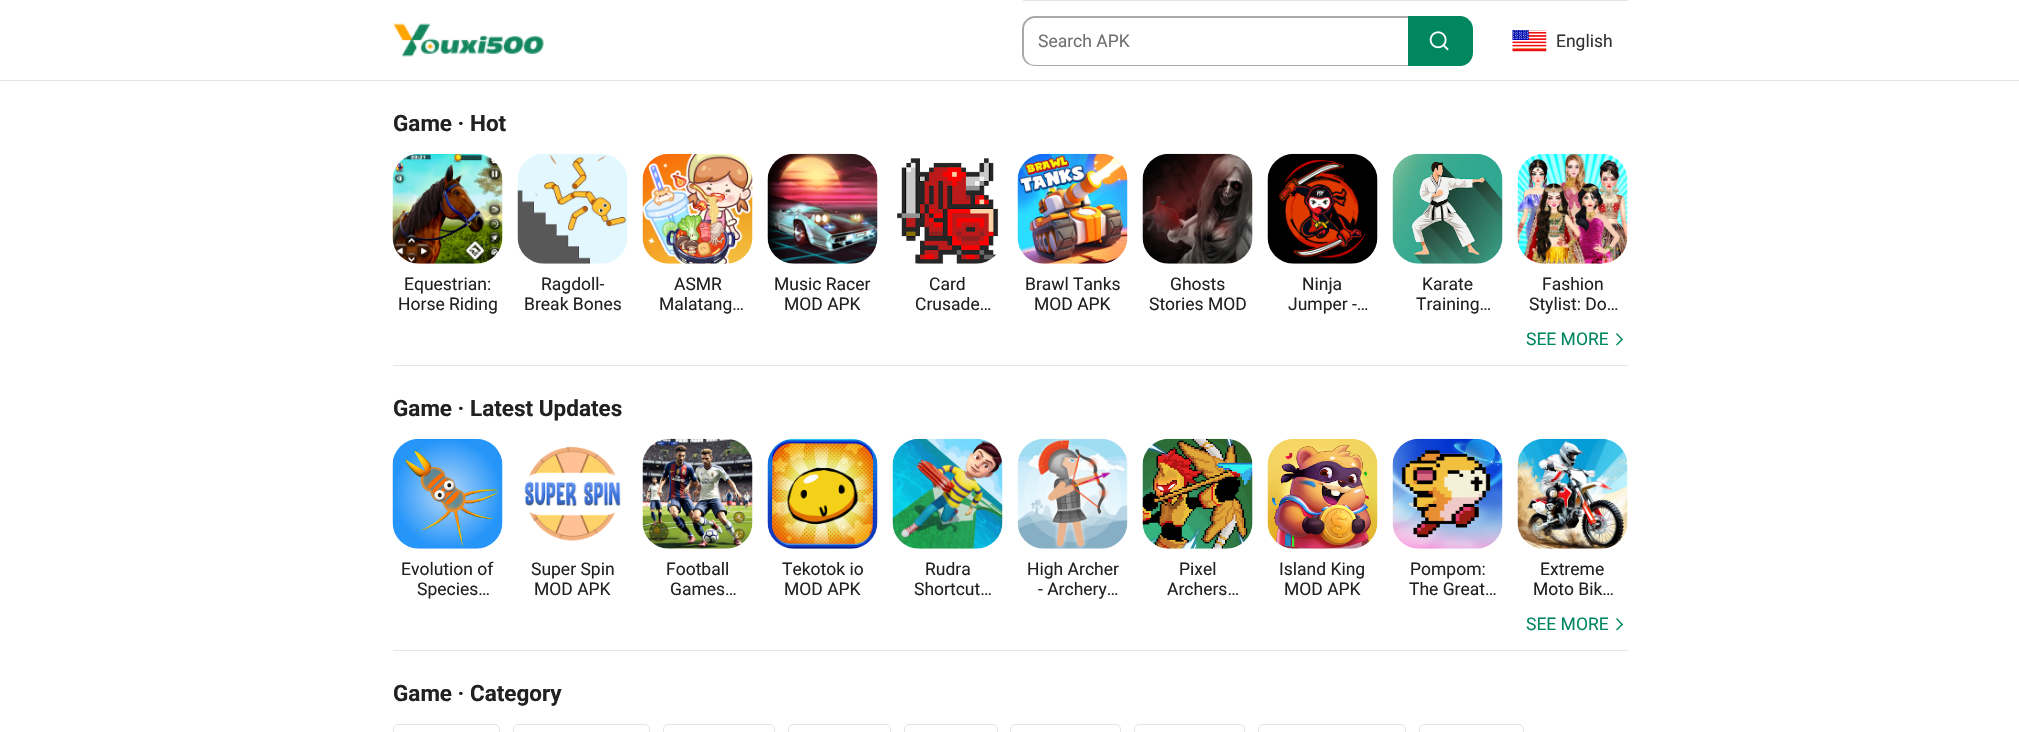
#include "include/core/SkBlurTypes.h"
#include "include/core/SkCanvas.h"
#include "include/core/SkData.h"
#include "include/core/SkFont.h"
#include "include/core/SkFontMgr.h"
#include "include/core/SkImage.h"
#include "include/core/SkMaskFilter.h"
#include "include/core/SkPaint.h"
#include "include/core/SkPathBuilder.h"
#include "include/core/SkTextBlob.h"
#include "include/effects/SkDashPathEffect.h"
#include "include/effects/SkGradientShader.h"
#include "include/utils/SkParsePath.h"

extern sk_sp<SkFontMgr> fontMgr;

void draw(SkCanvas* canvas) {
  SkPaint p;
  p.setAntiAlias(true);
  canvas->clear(SK_ColorWHITE);
  p.setColor(SkColorSetRGB(229, 229, 229));
  canvas->drawRect(SkRect::MakeLTRB(0, 80, 2019, 81), p);
  canvas->drawImageRect(SkImages::DeferredFromEncodedData(SkData::MakeFromFileName("images/1.png")), SkRect::MakeLTRB(393, 23, 544, 57), SkSamplingOptions());
  canvas->drawRect(SkRect::MakeLTRB(1023, 0, 1628, 1), p);
  p.setColor(SkColorSetRGB(169, 169, 169));
  canvas->drawPath(SkPathBuilder(SkPathFillType::kEvenOdd).moveTo(1035, 16).lineTo(1408, 16).lineTo(1408, 66).lineTo(1035, 66).cubicTo(1028, 66, 1022, 61, 1022, 54).lineTo(1022, 29).cubicTo(1022, 22, 1028, 16, 1035, 16).close().moveTo(1035, 18).lineTo(1408, 18).lineTo(1408, 65).lineTo(1035, 65).cubicTo(1029, 65, 1024, 60, 1024, 54).lineTo(1024, 29).cubicTo(1024, 23, 1029, 18, 1035, 18).close().detach(), p);
  p.setColor(SkColorSetRGB(0, 135, 95));
  canvas->drawPath(SkPathBuilder().moveTo(1408, 16).lineTo(1460, 16).cubicTo(1467, 16, 1473, 22, 1473, 29).lineTo(1473, 53).cubicTo(1473, 60, 1467, 66, 1460, 66).lineTo(1408, 66).close().detach(), p);
  canvas->drawImageRect(SkImages::DeferredFromEncodedData(SkData::MakeFromFileName("images/2.png")), SkRect::MakeLTRB(1429, 31, 1449, 51), SkSamplingOptions());
  canvas->drawImageRect(SkImages::DeferredFromEncodedData(SkData::MakeFromFileName("images/3.png")), SkRect::MakeLTRB(1512, 30, 1547, 52), SkSamplingOptions());
  p.setColor(SkColorSetRGB(229, 229, 229));
  canvas->drawRect(SkRect::MakeLTRB(393, 365, 1628, 366), p);
  canvas->drawImageRect(SkImages::DeferredFromEncodedData(SkData::MakeFromFileName("images/4.png")), SkRect::MakeLTRB(392, 153, 503, 264), SkSamplingOptions());
  canvas->drawImageRect(SkImages::DeferredFromEncodedData(SkData::MakeFromFileName("images/5.png")), SkRect::MakeLTRB(517, 154, 628, 264), SkSamplingOptions());
  canvas->drawImageRect(SkImages::DeferredFromEncodedData(SkData::MakeFromFileName("images/6.png")), SkRect::MakeLTRB(642, 153, 753, 264), SkSamplingOptions());
  canvas->drawImageRect(SkImages::DeferredFromEncodedData(SkData::MakeFromFileName("images/7.png")), SkRect::MakeLTRB(767, 153, 878, 264), SkSamplingOptions());
  canvas->drawImageRect(SkImages::DeferredFromEncodedData(SkData::MakeFromFileName("images/8.png")), SkRect::MakeLTRB(897, 158, 999, 264), SkSamplingOptions());
  canvas->drawImageRect(SkImages::DeferredFromEncodedData(SkData::MakeFromFileName("images/9.png")), SkRect::MakeLTRB(1017, 153, 1128, 264), SkSamplingOptions());
  canvas->drawImageRect(SkImages::DeferredFromEncodedData(SkData::MakeFromFileName("images/10.png")), SkRect::MakeLTRB(1142, 153, 1253, 264), SkSamplingOptions());
  canvas->drawImageRect(SkImages::DeferredFromEncodedData(SkData::MakeFromFileName("images/11.png")), SkRect::MakeLTRB(1267, 153, 1378, 264), SkSamplingOptions());
  canvas->drawImageRect(SkImages::DeferredFromEncodedData(SkData::MakeFromFileName("images/12.png")), SkRect::MakeLTRB(1392, 153, 1503, 264), SkSamplingOptions());
  canvas->drawImageRect(SkImages::DeferredFromEncodedData(SkData::MakeFromFileName("images/13.png")), SkRect::MakeLTRB(1517, 153, 1628, 264), SkSamplingOptions());
  p.setColor(SkColorSetRGB(0, 135, 95));
  canvas->drawPath(SkPathBuilder().moveTo(1616, 334).lineTo(1617, 333).lineTo(1623, 339.5f).lineTo(1622, 340.5f).close().detach(), p);
  canvas->drawPath(SkPathBuilder().moveTo(1616, 344.5f).lineTo(1622, 338.5f).lineTo(1623, 339.5f).lineTo(1617, 345.5f).close().detach(), p);
  p.setColor(SkColorSetRGB(229, 229, 229));
  canvas->drawRect(SkRect::MakeLTRB(393, 650, 1628, 651), p);
  canvas->drawImageRect(SkImages::DeferredFromEncodedData(SkData::MakeFromFileName("images/14.png")), SkRect::MakeLTRB(392, 438, 503, 549), SkSamplingOptions());
  canvas->drawImageRect(SkImages::DeferredFromEncodedData(SkData::MakeFromFileName("images/15.png")), SkRect::MakeLTRB(524, 446, 621, 541), SkSamplingOptions());
  canvas->drawImageRect(SkImages::DeferredFromEncodedData(SkData::MakeFromFileName("images/16.png")), SkRect::MakeLTRB(642, 438, 753, 549), SkSamplingOptions());
  canvas->drawImageRect(SkImages::DeferredFromEncodedData(SkData::MakeFromFileName("images/17.png")), SkRect::MakeLTRB(767, 438, 878, 549), SkSamplingOptions());
  canvas->drawImageRect(SkImages::DeferredFromEncodedData(SkData::MakeFromFileName("images/18.png")), SkRect::MakeLTRB(892, 438, 1003, 549), SkSamplingOptions());
  canvas->drawImageRect(SkImages::DeferredFromEncodedData(SkData::MakeFromFileName("images/19.png")), SkRect::MakeLTRB(1017, 438, 1128, 549), SkSamplingOptions());
  canvas->drawImageRect(SkImages::DeferredFromEncodedData(SkData::MakeFromFileName("images/20.png")), SkRect::MakeLTRB(1142, 438, 1253, 549), SkSamplingOptions());
  canvas->drawImageRect(SkImages::DeferredFromEncodedData(SkData::MakeFromFileName("images/21.png")), SkRect::MakeLTRB(1267, 438, 1378, 549), SkSamplingOptions());
  canvas->drawImageRect(SkImages::DeferredFromEncodedData(SkData::MakeFromFileName("images/22.png")), SkRect::MakeLTRB(1392, 438, 1503, 549), SkSamplingOptions());
  canvas->drawImageRect(SkImages::DeferredFromEncodedData(SkData::MakeFromFileName("images/23.png")), SkRect::MakeLTRB(1517, 438, 1628, 549), SkSamplingOptions());
  p.setColor(SkColorSetRGB(0, 135, 95));
  canvas->drawPath(SkPathBuilder().moveTo(1616, 619).lineTo(1617, 618).lineTo(1623, 624.5f).lineTo(1622, 625.5f).close().detach(), p);
  canvas->drawPath(SkPathBuilder().moveTo(1616, 629.5f).lineTo(1622, 623.5f).lineTo(1623, 624.5f).lineTo(1617, 630.5f).close().detach(), p);
  p.setStyle(SkPaint::kStroke_Style);
  p.setStrokeWidth(1);
  p.setColor(SkColorSetRGB(229, 229, 229));
  canvas->drawRoundRect(SkRect::MakeLTRB(393.5f, 724.5f, 499.5f, 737.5f), 4.5f, 4.5f, p);
  canvas->drawRoundRect(SkRect::MakeLTRB(513.5f, 724.5f, 649.5f, 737.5f), 4.5f, 4.5f, p);
  canvas->drawRoundRect(SkRect::MakeLTRB(663.5f, 724.5f, 774.5f, 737.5f), 4.5f, 4.5f, p);
  canvas->drawRoundRect(SkRect::MakeLTRB(788.5f, 724.5f, 890.5f, 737.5f), 4.5f, 4.5f, p);
  canvas->drawRoundRect(SkRect::MakeLTRB(904.5f, 724.5f, 997.5f, 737.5f), 4.5f, 4.5f, p);
  canvas->drawRoundRect(SkRect::MakeLTRB(1010.5f, 724.5f, 1120.5f, 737.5f), 4.5f, 4.5f, p);
  canvas->drawRoundRect(SkRect::MakeLTRB(1134.5f, 724.5f, 1244.5f, 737.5f), 4.5f, 4.5f, p);
  canvas->drawRoundRect(SkRect::MakeLTRB(1258.5f, 724.5f, 1405.5f, 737.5f), 4.5f, 4.5f, p);
  canvas->drawRoundRect(SkRect::MakeLTRB(1419.5f, 724.5f, 1523.5f, 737.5f), 4.5f, 4.5f, p);
  SkFont font1(fontMgr->matchFamilyStyle("Roboto", SkFontStyle::Normal()), 17.5f);
  font1.setSubpixel(true);
  p.setStyle(SkPaint::kFill_Style);
  p.setColor(SkColorSetRGB(111, 111, 111));
  canvas->drawString("Search APK", 1038, 47, font1, p);
  p.setColor(SkColorSetRGB(51, 51, 51));
  canvas->drawString("English", 1556, 47, font1, p);
  SkFont font2(fontMgr->matchFamilyStyle("Roboto", SkFontStyle::Bold()), 22.5f);
  font2.setSubpixel(true);
  p.setColor(SkColorSetRGB(33, 33, 33));
  canvas->drawString("Game · Hot", 393, 131, font2, p);
  canvas->drawString("Equestrian:", 404, 290, font1, p);
  canvas->drawString("Horse Riding", 398, 310, font1, p);
  canvas->drawString("Ragdoll-", 541, 290, font1, p);
  canvas->drawString("Break Bones", 524, 310, font1, p);
  canvas->drawString("ASMR", 674, 290, font1, p);
  canvas->drawString("Malatang…", 659, 310, font1, p);
  canvas->drawString("Music Racer", 774, 290, font1, p);
  canvas->drawString("MOD APK", 784, 310, font1, p);
  canvas->drawString("Card", 929, 290, font1, p);
  canvas->drawString("Crusade…", 915, 310, font1, p);
  canvas->drawString("Brawl Tanks", 1025, 290, font1, p);
  canvas->drawString("MOD APK", 1034, 310, font1, p);
  canvas->drawString("Ghosts", 1170, 290, font1, p);
  canvas->drawString("Stories MOD", 1149, 310, font1, p);
  canvas->drawString("Ninja", 1302, 290, font1, p);
  canvas->drawString("Jumper -…", 1288, 310, font1, p);
  canvas->drawString("Karate", 1422, 290, font1, p);
  canvas->drawString("Training…", 1416, 310, font1, p);
  canvas->drawString("Fashion", 1542, 290, font1, p);
  canvas->drawString("Stylist: Do…", 1529, 310, font1, p);
  p.setColor(SkColorSetRGB(0, 135, 95));
  canvas->drawString("SEE MORE", 1526, 345, font1, p);
  p.setColor(SkColorSetRGB(33, 33, 33));
  canvas->drawString("Game · Latest Updates", 393, 416, font2, p);
  canvas->drawString("Evolution of", 401, 575, font1, p);
  canvas->drawString("Species…", 417, 595, font1, p);
  canvas->drawString("Super Spin", 531, 575, font1, p);
  canvas->drawString("MOD APK", 534, 595, font1, p);
  canvas->drawString("Football", 666, 575, font1, p);
  canvas->drawString("Games…", 670, 595, font1, p);
  canvas->drawString("Tekotok io", 782, 575, font1, p);
  canvas->drawString("MOD APK", 784, 595, font1, p);
  canvas->drawString("Rudra", 925, 575, font1, p);
  canvas->drawString("Shortcut…", 914, 595, font1, p);
  canvas->drawString("High Archer", 1027, 575, font1, p);
  canvas->drawString("- Archery…", 1038, 595, font1, p);
  canvas->drawString("Pixel", 1179, 575, font1, p);
  canvas->drawString("Archers…", 1167, 595, font1, p);
  canvas->drawString("Island King", 1279, 575, font1, p);
  canvas->drawString("MOD APK", 1284, 595, font1, p);
  canvas->drawString("Pompom:", 1410, 575, font1, p);
  canvas->drawString("The Great…", 1409, 595, font1, p);
  canvas->drawString("Extreme", 1540, 575, font1, p);
  canvas->drawString("Moto Bik…", 1533, 595, font1, p);
  p.setColor(SkColorSetRGB(0, 135, 95));
  canvas->drawString("SEE MORE", 1526, 630, font1, p);
  p.setColor(SkColorSetRGB(33, 33, 33));
  canvas->drawString("Game · Category", 393, 701, font2, p);
}
